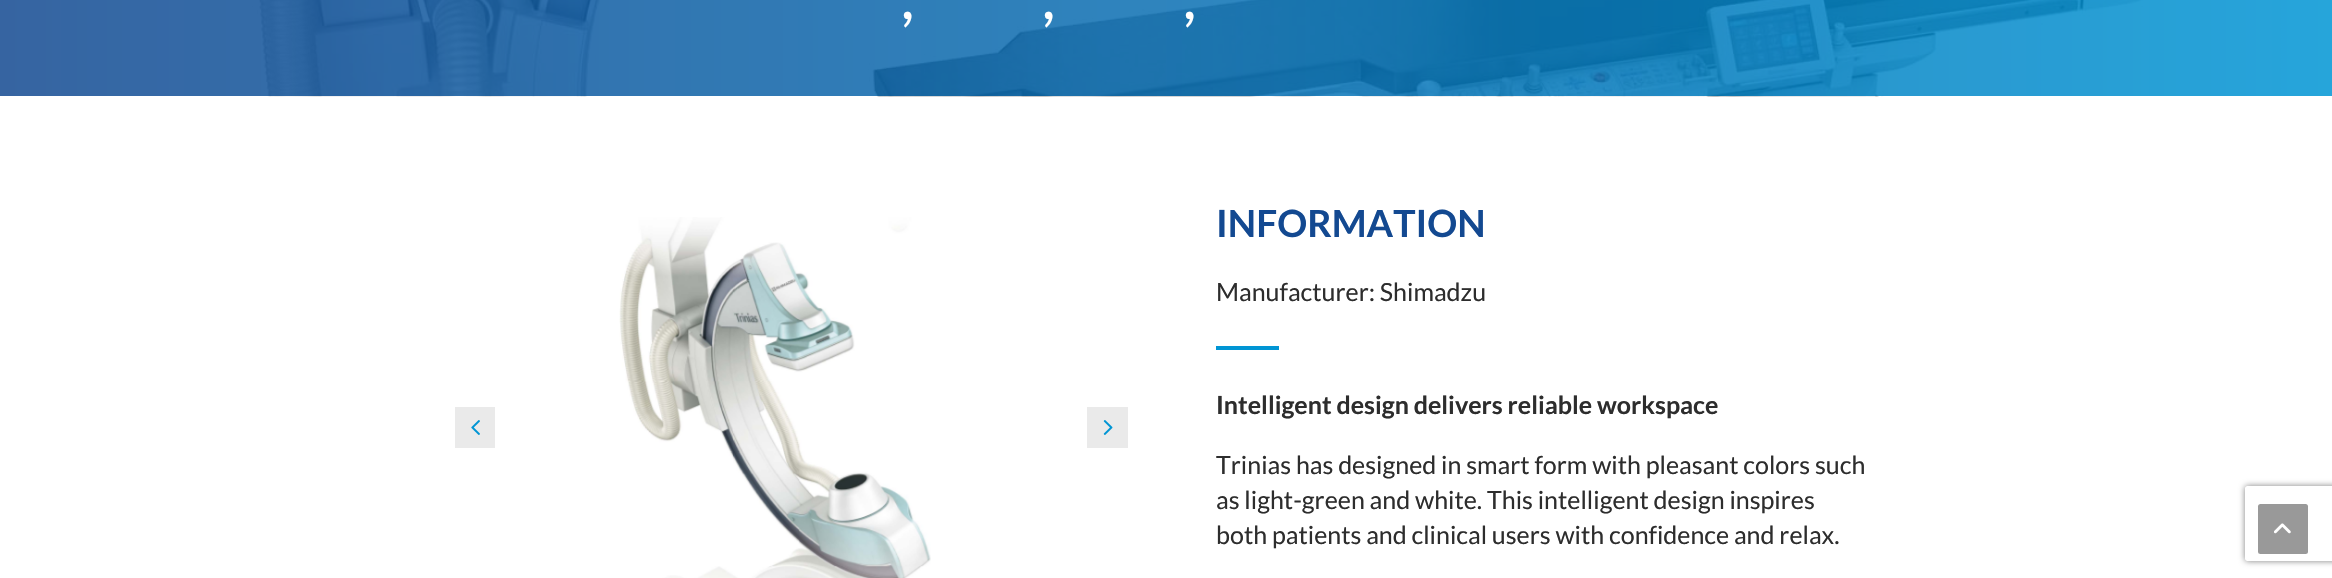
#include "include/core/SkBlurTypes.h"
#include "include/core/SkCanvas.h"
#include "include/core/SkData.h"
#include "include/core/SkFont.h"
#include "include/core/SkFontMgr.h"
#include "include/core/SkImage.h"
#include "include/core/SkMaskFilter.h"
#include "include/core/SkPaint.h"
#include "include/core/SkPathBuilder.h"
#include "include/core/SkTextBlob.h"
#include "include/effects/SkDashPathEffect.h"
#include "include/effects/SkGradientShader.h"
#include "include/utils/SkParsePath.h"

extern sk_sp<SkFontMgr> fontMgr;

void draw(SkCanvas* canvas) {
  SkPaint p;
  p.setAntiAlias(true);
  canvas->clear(SK_ColorWHITE);
  canvas->drawImageRect(SkImages::DeferredFromEncodedData(SkData::MakeFromFileName("images/1.png")), SkRect::MakeLTRB(252, 0, 2144, 97), SkSamplingOptions());
  {
    const SkColor colors[] = {SkColorSetARGB(217, 19, 73, 145), SkColorSetARGB(217, 0, 149, 212)};
    const float stops[] = {0, 1};
    const SkPoint ends[] = {{0, 2.5f}, {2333, 2.5f}};
    p.setShader(SkGradientShader::MakeLinear(ends, colors, stops, 2, SkTileMode::kClamp));
    p.setAlpha(255);
  }
  canvas->drawRect(SkRect::MakeLTRB(0, 0, 2332, 96), p);
  p.setShader(nullptr);
  p.setColor(SkColorSetRGB(234, 234, 234));
  canvas->drawRect(SkRect::MakeLTRB(455, 407, 495, 448), p);
  canvas->drawImageRect(SkImages::DeferredFromEncodedData(SkData::MakeFromFileName("images/2.png")), SkRect::MakeLTRB(471, 420, 480, 435), SkSamplingOptions());
  canvas->drawImageRect(SkImages::DeferredFromEncodedData(SkData::MakeFromFileName("images/3.png")), SkRect::MakeLTRB(619, 217, 931, 578), SkSamplingOptions());
  canvas->drawRect(SkRect::MakeLTRB(1087, 407, 1128, 448), p);
  canvas->drawImageRect(SkImages::DeferredFromEncodedData(SkData::MakeFromFileName("images/4.png")), SkRect::MakeLTRB(1103, 420, 1113, 435), SkSamplingOptions());
  p.setColor(SkColorSetRGB(0, 149, 212));
  canvas->drawRect(SkRect::MakeLTRB(1216, 346, 1279, 350), p);
  canvas->save();
  canvas->clipPath(SkPathBuilder(SkPathFillType::kEvenOdd).moveTo(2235, 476).lineTo(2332, 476).lineTo(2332, 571).lineTo(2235, 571).close().moveTo(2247.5f, 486).lineTo(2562.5f, 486).cubicTo(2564, 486, 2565, 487, 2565, 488.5f).lineTo(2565, 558.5f).cubicTo(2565, 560, 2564, 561, 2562.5f, 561).lineTo(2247.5f, 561).cubicTo(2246, 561, 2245, 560, 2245, 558.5f).lineTo(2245, 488.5f).cubicTo(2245, 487, 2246, 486, 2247.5f, 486).close().detach(), true);
  p.setColor(SkColorSetRGB(128, 128, 128));
  p.setMaskFilter(SkMaskFilter::MakeBlur(kNormal_SkBlurStyle, 3));
  canvas->drawRoundRect(SkRect::MakeLTRB(2245, 486, 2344, 561), 2.5f, 2.5f, p);
  p.setMaskFilter(nullptr);
  canvas->restore();
  p.setColor(SkColorSetRGB(153, 153, 153));
  canvas->drawRoundRect(SkRect::MakeLTRB(2258, 504, 2308, 554), 2.5f, 2.5f, p);
  canvas->drawImageRect(SkImages::DeferredFromEncodedData(SkData::MakeFromFileName("images/5.png")), SkRect::MakeLTRB(2274, 523, 2291, 534), SkSamplingOptions());
  SkFont font1(fontMgr->matchFamilyStyle("Lato", SkFontStyle::Normal()), 62);
  font1.setSubpixel(true);
  p.setColor(SK_ColorWHITE);
  canvas->drawString(",", 901, 19, font1, p);
  canvas->drawString(",", 1042, 19, font1, p);
  canvas->drawString(",", 1183, 19, font1, p);
  SkFont font2(fontMgr->matchFamilyStyle("Lato", SkFontStyle::Bold()), 37.5f);
  font2.setSubpixel(true);
  p.setColor(SkColorSetRGB(19, 73, 145));
  canvas->drawString("INFORMATION", 1216, 237, font2, p);
  SkFont font3(fontMgr->matchFamilyStyle("Lato", SkFontStyle::Normal()), 25);
  font3.setSubpixel(true);
  p.setColor(SkColorSetRGB(45, 45, 45));
  canvas->drawString("Manufacturer: Shimadzu", 1216, 301, font3, p);
  SkFont font4(fontMgr->matchFamilyStyle("Lato", SkFontStyle::Bold()), 25);
  font4.setSubpixel(true);
  canvas->drawString("Intelligent design delivers reliable workspace", 1216, 414, font4, p);
  canvas->drawString("Trinias has designed in smart form with pleasant colors such", 1216, 474, font3, p);
  canvas->drawString("as light-green and white. This intelligent design inspires", 1216, 509, font3, p);
  canvas->drawString("both patients and clinical users with confidence and relax.", 1216, 544, font3, p);
}
